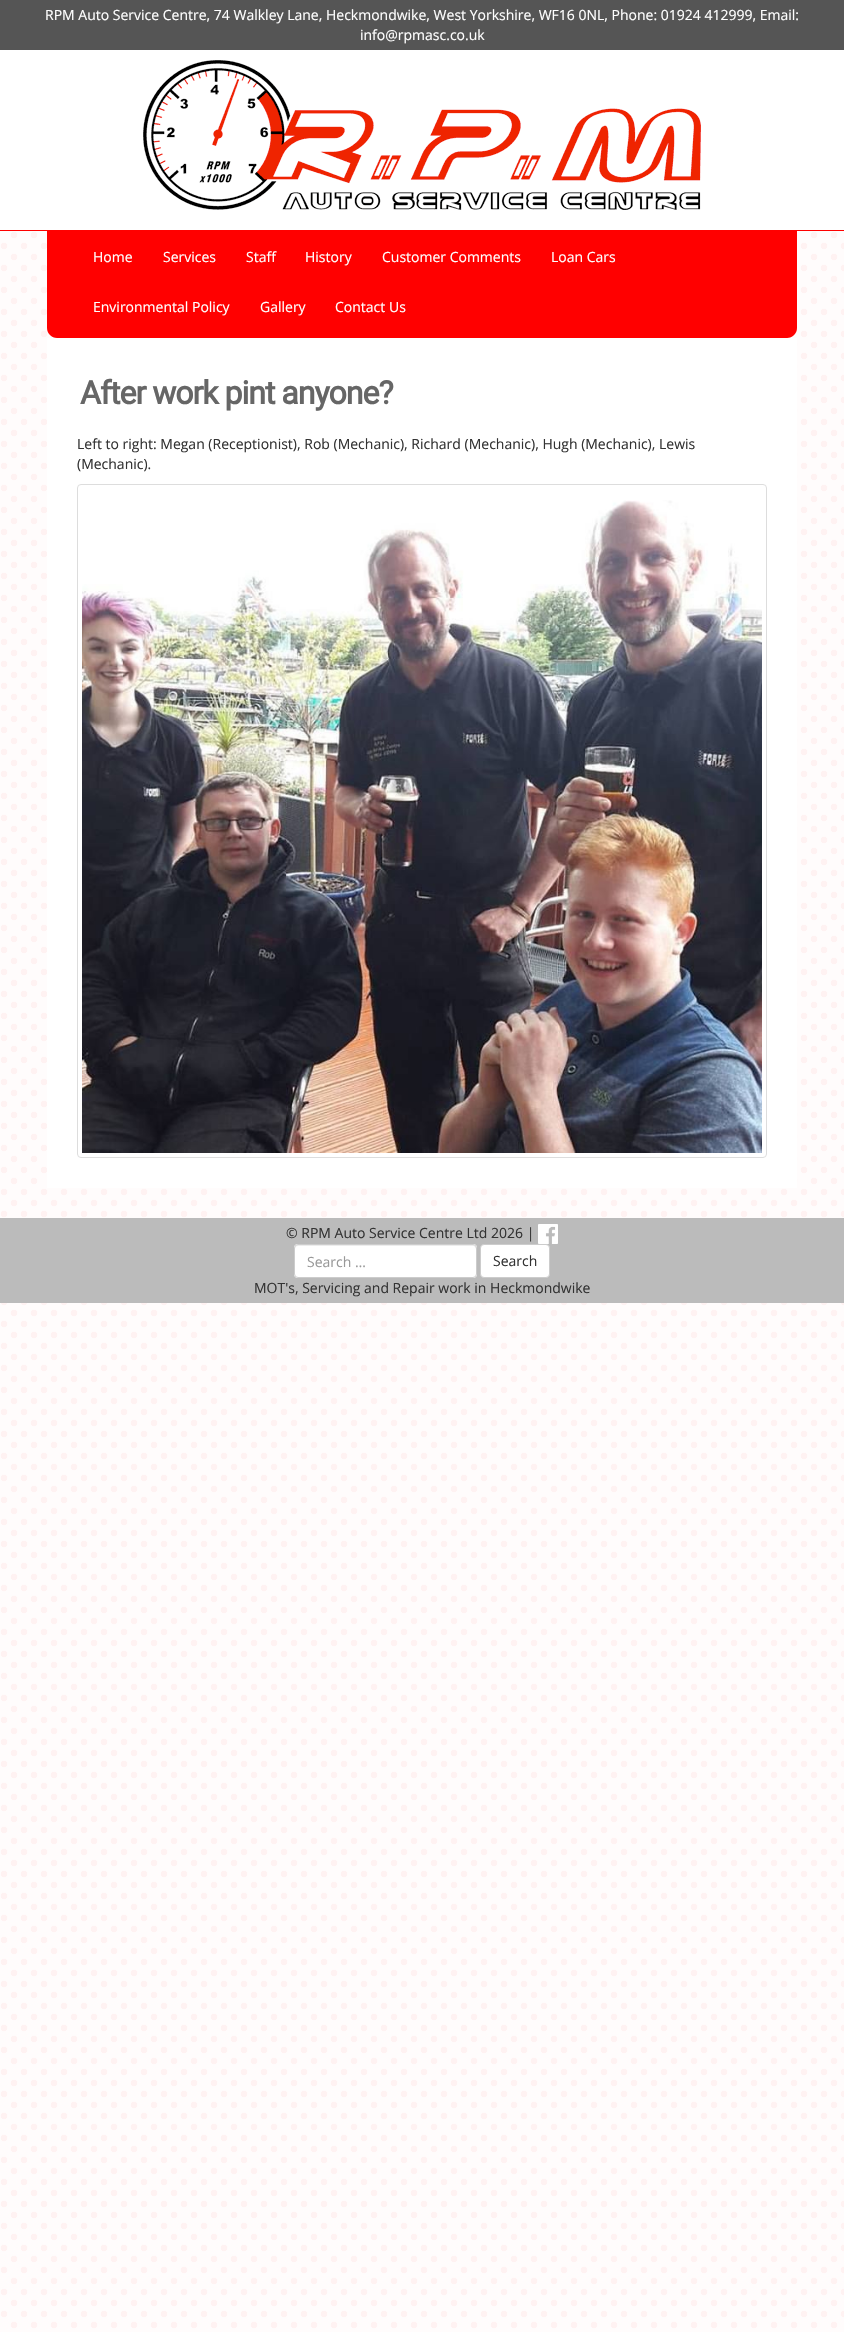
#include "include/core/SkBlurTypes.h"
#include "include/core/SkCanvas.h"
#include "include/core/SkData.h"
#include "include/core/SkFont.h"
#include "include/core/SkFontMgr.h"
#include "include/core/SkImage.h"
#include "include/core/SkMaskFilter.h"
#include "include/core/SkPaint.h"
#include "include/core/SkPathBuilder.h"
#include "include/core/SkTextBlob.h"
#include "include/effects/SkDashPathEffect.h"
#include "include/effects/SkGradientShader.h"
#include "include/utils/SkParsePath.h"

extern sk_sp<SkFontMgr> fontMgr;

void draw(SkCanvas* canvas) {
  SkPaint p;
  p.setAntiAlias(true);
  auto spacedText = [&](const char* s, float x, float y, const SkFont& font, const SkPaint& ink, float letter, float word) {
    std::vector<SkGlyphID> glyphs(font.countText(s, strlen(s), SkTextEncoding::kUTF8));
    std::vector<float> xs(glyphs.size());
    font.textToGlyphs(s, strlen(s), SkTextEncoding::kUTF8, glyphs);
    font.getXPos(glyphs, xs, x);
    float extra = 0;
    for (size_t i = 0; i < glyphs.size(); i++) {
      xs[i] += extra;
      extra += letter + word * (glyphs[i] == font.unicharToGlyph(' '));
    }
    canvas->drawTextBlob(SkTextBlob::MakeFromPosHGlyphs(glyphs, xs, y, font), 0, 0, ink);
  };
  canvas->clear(SK_ColorWHITE);
  canvas->drawImageRect(SkImages::DeferredFromEncodedData(SkData::MakeFromFileName("images/1.png")), SkRect::MakeLTRB(0, 231, 844, 2332), SkSamplingOptions());
  p.setColor(SkColorSetRGB(255, 0, 0));
  canvas->drawRect(SkRect::MakeLTRB(0, 230, 844, 231), p);
  p.setColor(SkColorSetRGB(85, 85, 85));
  canvas->drawRect(SkRect::MakeLTRB(0, 0, 844, 50), p);
  canvas->drawImageRect(SkImages::DeferredFromEncodedData(SkData::MakeFromFileName("images/2.png")), SkRect::MakeLTRB(143, 60, 701, 210), SkSamplingOptions());
  p.setColor(SkColorSetRGB(255, 0, 0));
  canvas->drawPath(SkPathBuilder().moveTo(47, 231).lineTo(797, 231).lineTo(797, 328).cubicTo(797, 333.5f, 792.5f, 338, 787, 338).lineTo(57, 338).cubicTo(51.5f, 338, 47, 333.5f, 47, 328).close().detach(), p);
  p.setColor(SK_ColorWHITE);
  canvas->drawRect(SkRect::MakeLTRB(47, 338, 797, 1188), p);
  p.setStyle(SkPaint::kStroke_Style);
  p.setStrokeWidth(1);
  p.setColor(SkColorSetRGB(221, 221, 221));
  canvas->drawRoundRect(SkRect::MakeLTRB(77.5f, 484.5f, 766.5f, 1157.5f), 3.5f, 3.5f, p);
  canvas->drawImageRect(SkImages::DeferredFromEncodedData(SkData::MakeFromFileName("images/3.png")), SkRect::MakeLTRB(82, 500, 762, 1153), SkSamplingOptions());
  p.setStyle(SkPaint::kFill_Style);
  p.setColor(SkColorSetRGB(187, 187, 187));
  canvas->drawRect(SkRect::MakeLTRB(0, 1218, 844, 1303), p);
  canvas->drawImageRect(SkImages::DeferredFromEncodedData(SkData::MakeFromFileName("images/4.png")), SkRect::MakeLTRB(538, 1224, 558, 1244), SkSamplingOptions());
  p.setColor(SK_ColorWHITE);
  canvas->drawRoundRect(SkRect::MakeLTRB(294, 1244, 477, 1278), 4, 4, p);
  p.setColor(SkColorSetRGB(236, 236, 236));
  canvas->drawPath(SkPathBuilder().moveTo(298, 1246).lineTo(474, 1246).lineTo(475, 1247).lineTo(476, 1249).lineTo(476, 1248).cubicTo(476, 1246, 475, 1245, 473, 1245).lineTo(298, 1245).cubicTo(296, 1245, 295, 1246, 295, 1248).lineTo(295, 1249).cubicTo(295, 1247, 296, 1246, 298, 1246).close().detach(), p);
  p.setStyle(SkPaint::kStroke_Style);
  p.setColor(SkColorSetRGB(204, 204, 204));
  canvas->drawRoundRect(SkRect::MakeLTRB(294.5f, 1244.5f, 476.5f, 1277.5f), 3.5f, 3.5f, p);
  p.setStyle(SkPaint::kFill_Style);
  p.setColor(SK_ColorWHITE);
  canvas->drawRoundRect(SkRect::MakeLTRB(480.5f, 1244.5f, 549.5f, 1277.5f), 3.5f, 3.5f, p);
  p.setStyle(SkPaint::kStroke_Style);
  p.setColor(SkColorSetRGB(204, 204, 204));
  canvas->drawRoundRect(SkRect::MakeLTRB(480.5f, 1244.5f, 549.5f, 1277.5f), 3.5f, 3.5f, p);
  SkFont font1(fontMgr->matchFamilyStyle("Open Sans", SkFontStyle::Normal()), 14);
  font1.setSubpixel(true);
  p.setStyle(SkPaint::kFill_Style);
  p.setColor(SK_ColorWHITE);
  canvas->drawString("RPM Auto Service Centre, 74 Walkley Lane, Heckmondwike, West Yorkshire, WF16 0NL, Phone: 01924 412999, Email:", 45, 20, font1, p);
  canvas->drawString("info@rpmasc.co.uk", 360, 40, font1, p);
  canvas->drawString("Home", 93, 262, font1, p);
  canvas->drawString("Services", 163, 262, font1, p);
  canvas->drawString("Staff", 246, 262, font1, p);
  canvas->drawString("History", 305, 262, font1, p);
  canvas->drawString("Customer Comments", 382, 262, font1, p);
  canvas->drawString("Loan Cars", 551, 262, font1, p);
  canvas->drawString("Environmental Policy", 93, 312, font1, p);
  canvas->drawString("Gallery", 260, 312, font1, p);
  canvas->drawString("Contact Us", 335, 312, font1, p);
  SkFont font2(fontMgr->matchFamilyStyle("Roboto", SkFontStyle::Bold()), 32);
  font2.setSubpixel(true);
  p.setColor(SkColorSetRGB(102, 102, 102));
  spacedText("After work pint anyone?", 80, 404, font2, p, -1, 0);
  p.setColor(SkColorSetRGB(51, 51, 51));
  canvas->drawString("Left to right: Megan (Receptionist), Rob (Mechanic), Richard (Mechanic), Hugh (Mechanic), Lewis", 77, 449, font1, p);
  canvas->drawString("(Mechanic).", 77, 469, font1, p);
  canvas->drawString("© RPM Auto Service Centre Ltd 2026 |", 286, 1238, font1, p);
  p.setColor(SkColorSetRGB(153, 153, 153));
  canvas->drawString("Search …", 307, 1267, font1, p);
  p.setColor(SkColorSetRGB(51, 51, 51));
  canvas->drawString("Search", 493, 1266, font1, p);
  canvas->drawString("MOT's, Servicing and Repair work in Heckmondwike", 254, 1293, font1, p);
}
